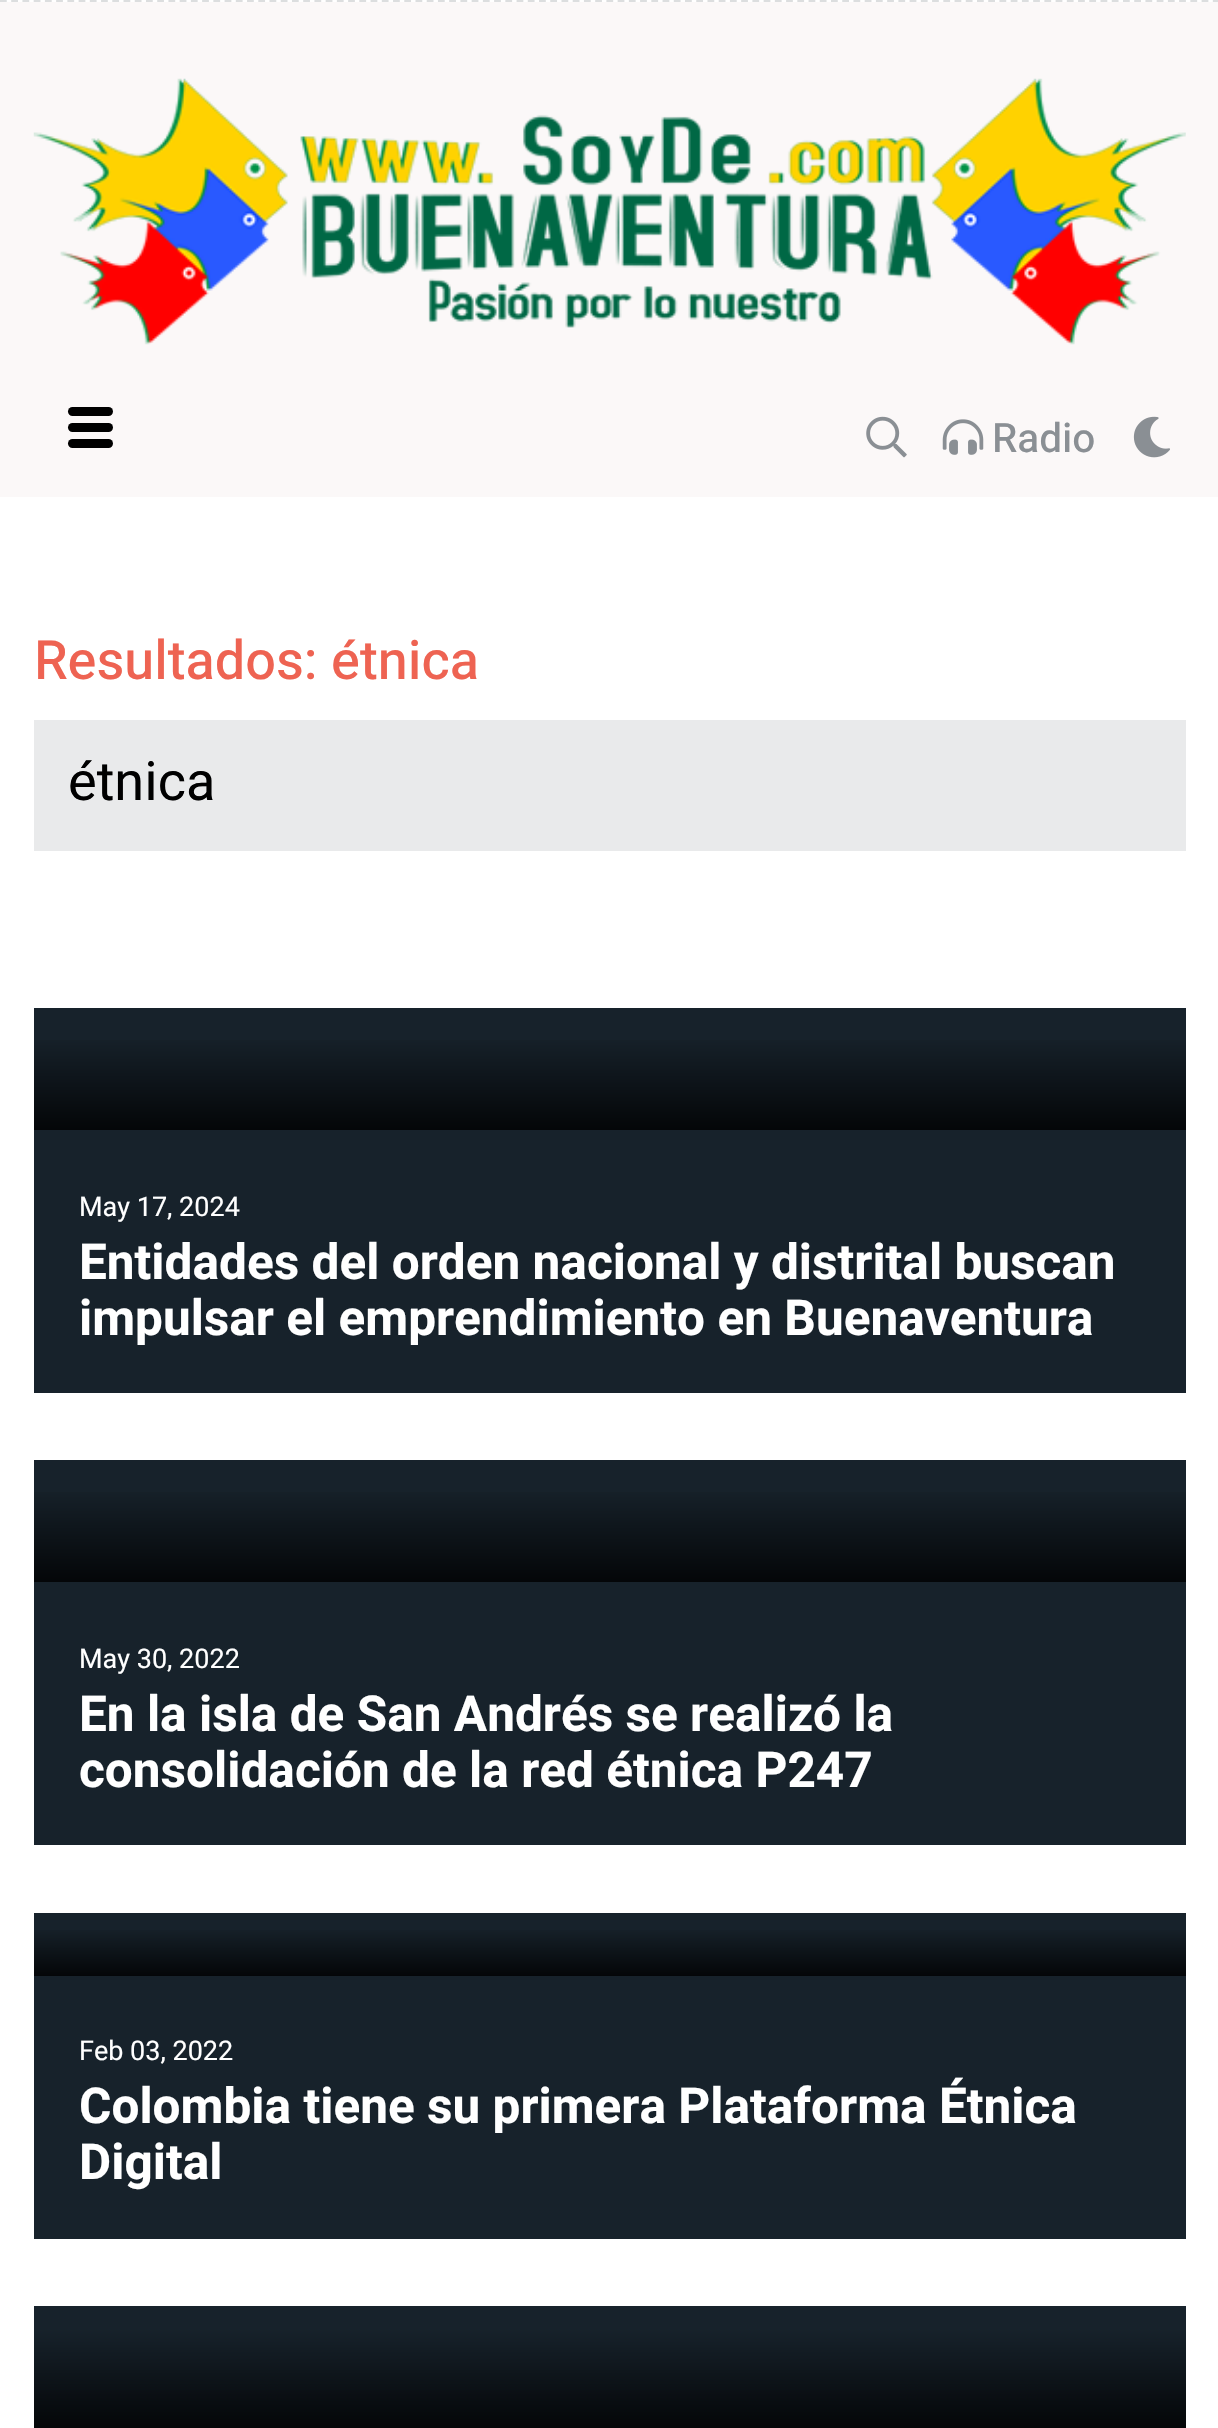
#include "include/core/SkBlurTypes.h"
#include "include/core/SkCanvas.h"
#include "include/core/SkData.h"
#include "include/core/SkFont.h"
#include "include/core/SkFontMgr.h"
#include "include/core/SkImage.h"
#include "include/core/SkMaskFilter.h"
#include "include/core/SkPaint.h"
#include "include/core/SkPathBuilder.h"
#include "include/core/SkTextBlob.h"
#include "include/effects/SkDashPathEffect.h"
#include "include/effects/SkGradientShader.h"
#include "include/utils/SkParsePath.h"

extern sk_sp<SkFontMgr> fontMgr;

void draw(SkCanvas* canvas) {
  SkPaint p;
  p.setAntiAlias(true);
  canvas->clear(SK_ColorWHITE);
  p.setStyle(SkPaint::kStroke_Style);
  p.setStrokeWidth(2.2f);
  p.setColor(SkColorSetRGB(220, 222, 223));
  p.setPathEffect(SkDashPathEffect::Make({{6.75f, 4.48f}}, 0));
  canvas->drawPath(SkPathBuilder().moveTo(0, 1).lineTo(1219.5f, 1).detach(), p);
  p.setPathEffect(nullptr);
  p.setStyle(SkPaint::kFill_Style);
  p.setColor(SkColorSetRGB(251, 248, 248));
  canvas->drawRect(SkRect::MakeLTRB(0, 2, 1218, 497), p);
  canvas->drawImageRect(SkImages::DeferredFromEncodedData(SkData::MakeFromFileName("images/1.png")), SkRect::MakeLTRB(33, 78, 1186, 345), SkSamplingOptions());
  p.setColor(SK_ColorBLACK);
  canvas->drawRoundRect(SkRect::MakeLTRB(68, 407, 113, 416), 4.5f, 4.5f, p);
  canvas->drawRoundRect(SkRect::MakeLTRB(68, 423, 113, 432), 4.5f, 4.5f, p);
  canvas->drawRoundRect(SkRect::MakeLTRB(68, 439, 113, 448), 4.5f, 4.5f, p);
  canvas->drawImageRect(SkImages::DeferredFromEncodedData(SkData::MakeFromFileName("images/2.png")), SkRect::MakeLTRB(866, 416, 907, 458), SkSamplingOptions());
  canvas->drawImageRect(SkImages::DeferredFromEncodedData(SkData::MakeFromFileName("images/3.png")), SkRect::MakeLTRB(942, 419, 984, 455), SkSamplingOptions());
  canvas->drawImageRect(SkImages::DeferredFromEncodedData(SkData::MakeFromFileName("images/4.png")), SkRect::MakeLTRB(1133, 416, 1170, 458), SkSamplingOptions());
  p.setColor(SkColorSetRGB(233, 234, 235));
  canvas->drawRect(SkRect::MakeLTRB(34, 720, 1186, 851), p);
  p.setColor(SkColorSetRGB(23, 34, 43));
  canvas->drawRect(SkRect::MakeLTRB(34, 1008, 1186, 1393), p);
  {
    const SkColor colors[] = {SkColorSetRGB(4, 6, 8), SkColorSetRGB(23, 34, 43)};
    const float stops[] = {0, 1};
    const SkPoint ends[] = {{610, 1130}, {610, 1033}};
    p.setShader(SkGradientShader::MakeLinear(ends, colors, stops, 2, SkTileMode::kClamp));
    p.setAlpha(255);
  }
  canvas->drawRect(SkRect::MakeLTRB(34, 1040, 1186, 1130), p);
  p.setShader(nullptr);
  p.setColor(SkColorSetRGB(23, 34, 43));
  canvas->drawRect(SkRect::MakeLTRB(34, 1460, 1186, 1845), p);
  {
    const SkColor colors[] = {SkColorSetRGB(4, 6, 8), SkColorSetRGB(23, 34, 43)};
    const float stops[] = {0, 1};
    const SkPoint ends[] = {{610, 1582}, {610, 1485}};
    p.setShader(SkGradientShader::MakeLinear(ends, colors, stops, 2, SkTileMode::kClamp));
    p.setAlpha(255);
  }
  canvas->drawRect(SkRect::MakeLTRB(34, 1492, 1186, 1582), p);
  p.setShader(nullptr);
  p.setColor(SkColorSetRGB(23, 34, 43));
  canvas->drawRect(SkRect::MakeLTRB(34, 1913, 1186, 2239), p);
  {
    const SkColor colors[] = {SkColorSetRGB(4, 6, 8), SkColorSetRGB(23, 34, 43)};
    const float stops[] = {0, 1};
    const SkPoint ends[] = {{610, 1976}, {610, 1926}};
    p.setShader(SkGradientShader::MakeLinear(ends, colors, stops, 2, SkTileMode::kClamp));
    p.setAlpha(255);
  }
  canvas->drawRect(SkRect::MakeLTRB(34, 1930, 1186, 1976), p);
  p.setShader(nullptr);
  p.setColor(SkColorSetRGB(23, 34, 43));
  canvas->drawRect(SkRect::MakeLTRB(34, 2306, 1186, 2329), p);
  {
    const SkColor colors[] = {SkColorSetRGB(4, 6, 8), SkColorSetRGB(23, 34, 43)};
    const float stops[] = {0, 1};
    const SkPoint ends[] = {{610, 2428}, {610, 2329}};
    p.setShader(SkGradientShader::MakeLinear(ends, colors, stops, 2, SkTileMode::kClamp));
    p.setAlpha(255);
  }
  canvas->drawRect(SkRect::MakeLTRB(34, 2329, 1186, 2428), p);
  SkFont font1(fontMgr->matchFamilyStyle("Heebo", SkFontStyle(500, SkFontStyle::kNormal_Width, SkFontStyle::kUpright_Slant)), 40.5f);
  font1.setSubpixel(true);
  p.setShader(nullptr);
  p.setColor(SkColorSetRGB(138, 143, 148));
  canvas->drawString("Radio", 992, 452, font1, p);
  SkFont font2(fontMgr->matchFamilyStyle("Heebo", SkFontStyle(500, SkFontStyle::kNormal_Width, SkFontStyle::kUpright_Slant)), 54);
  font2.setSubpixel(true);
  p.setColor(SkColorSetRGB(238, 99, 82));
  canvas->drawString("Resultados: étnica", 34, 679, font2, p);
  SkFont font3(fontMgr->matchFamilyStyle("Heebo", SkFontStyle::Normal()), 54);
  font3.setSubpixel(true);
  p.setColor(SK_ColorBLACK);
  canvas->drawString("étnica", 68, 800, font3, p);
  SkFont font4(fontMgr->matchFamilyStyle("Heebo", SkFontStyle::Normal()), 27);
  font4.setSubpixel(true);
  p.setColor(SK_ColorWHITE);
  canvas->drawString("May 17, 2024", 79, 1216, font4, p);
  SkFont font5(fontMgr->matchFamilyStyle("Heebo", SkFontStyle::Bold()), 49.5f);
  font5.setSubpixel(true);
  canvas->drawString("Entidades del orden nacional y distrital buscan", 79, 1279, font5, p);
  canvas->drawString("impulsar el emprendimiento en Buenaventura", 79, 1335, font5, p);
  canvas->drawString("May 30, 2022", 79, 1668, font4, p);
  canvas->drawString("En la isla de San Andrés se realizó la", 79, 1731, font5, p);
  canvas->drawString("consolidación de la red étnica P247", 79, 1787, font5, p);
  canvas->drawString("Feb 03, 2022", 79, 2060, font4, p);
  canvas->drawString("Colombia tiene su primera Plataforma Étnica", 79, 2123, font5, p);
  canvas->drawString("Digital", 79, 2179, font5, p);
}
